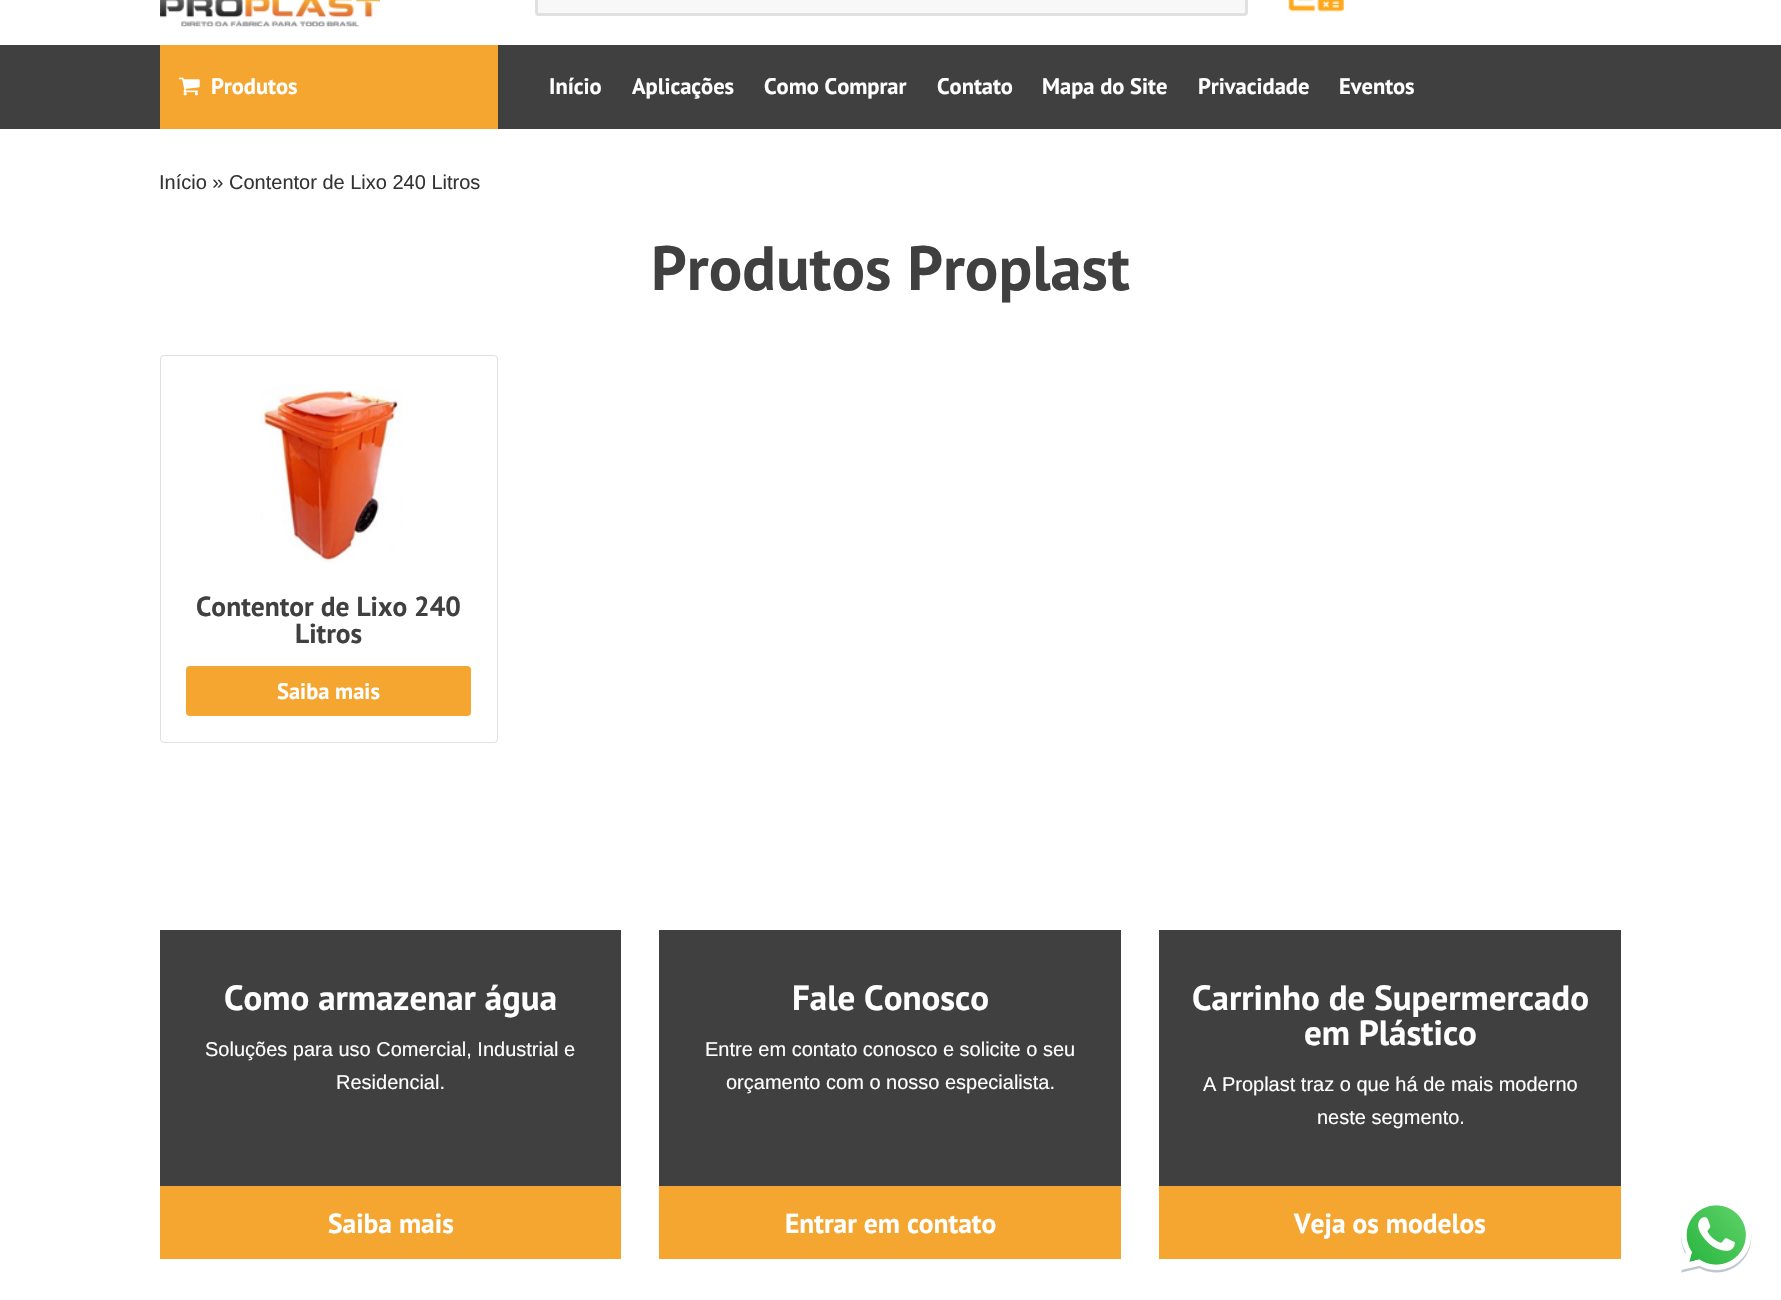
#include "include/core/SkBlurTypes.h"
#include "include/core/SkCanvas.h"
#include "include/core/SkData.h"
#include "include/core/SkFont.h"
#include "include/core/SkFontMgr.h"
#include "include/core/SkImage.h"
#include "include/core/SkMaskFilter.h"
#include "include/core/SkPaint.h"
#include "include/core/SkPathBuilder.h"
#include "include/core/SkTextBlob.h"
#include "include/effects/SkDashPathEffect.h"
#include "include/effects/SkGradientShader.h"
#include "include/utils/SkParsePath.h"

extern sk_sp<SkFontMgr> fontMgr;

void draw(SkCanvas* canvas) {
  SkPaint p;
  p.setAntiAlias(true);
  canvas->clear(SK_ColorWHITE);
  canvas->drawImageRect(SkImages::DeferredFromEncodedData(SkData::MakeFromFileName("images/1.png")), SkRect::MakeLTRB(160, 0, 380, 27), SkSamplingOptions());
  p.setColor(SkColorSetRGB(248, 248, 248));
  canvas->drawRoundRect(SkRect::MakeLTRB(536.5f, -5.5f, 1246.5f, 14.5f), 2.5f, 2.5f, p);
  p.setStyle(SkPaint::kStroke_Style);
  p.setStrokeWidth(3);
  p.setColor(SkColorSetRGB(225, 224, 224));
  canvas->drawRoundRect(SkRect::MakeLTRB(536.5f, -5.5f, 1246.5f, 14.5f), 2.5f, 2.5f, p);
  canvas->drawImageRect(SkImages::DeferredFromEncodedData(SkData::MakeFromFileName("images/2.png")), SkRect::MakeLTRB(1288, 0, 1344, 12), SkSamplingOptions());
  p.setStyle(SkPaint::kFill_Style);
  p.setColor(SkColorSetRGB(64, 64, 65));
  canvas->drawRect(SkRect::MakeLTRB(0, 45, 1781, 129), p);
  p.setColor(SkColorSetRGB(245, 166, 49));
  canvas->drawRect(SkRect::MakeLTRB(160, 45, 498, 129), p);
  canvas->drawImageRect(SkImages::DeferredFromEncodedData(SkData::MakeFromFileName("images/3.png")), SkRect::MakeLTRB(178, 77, 200, 96), SkSamplingOptions());
  p.setStyle(SkPaint::kStroke_Style);
  p.setStrokeWidth(1);
  p.setColor(SkColorSetRGB(225, 224, 224));
  canvas->drawRoundRect(SkRect::MakeLTRB(160.5f, 355.5f, 497.5f, 742.5f), 3.5f, 3.5f, p);
  canvas->drawImageRect(SkImages::DeferredFromEncodedData(SkData::MakeFromFileName("images/4.png")), SkRect::MakeLTRB(260, 389, 403, 563), SkSamplingOptions());
  p.setStyle(SkPaint::kFill_Style);
  p.setColor(SkColorSetRGB(245, 166, 49));
  canvas->drawRoundRect(SkRect::MakeLTRB(186, 666, 471, 716), 4, 4, p);
  p.setColor(SkColorSetRGB(64, 64, 65));
  canvas->drawRect(SkRect::MakeLTRB(160, 930, 621, 1186), p);
  p.setColor(SkColorSetRGB(245, 166, 49));
  canvas->drawRect(SkRect::MakeLTRB(160, 1186, 621, 1259), p);
  p.setColor(SkColorSetRGB(64, 64, 65));
  canvas->drawRect(SkRect::MakeLTRB(659, 930, 1121, 1186), p);
  p.setColor(SkColorSetRGB(245, 166, 49));
  canvas->drawRect(SkRect::MakeLTRB(659, 1186, 1121, 1259), p);
  p.setColor(SkColorSetRGB(64, 64, 65));
  canvas->drawRect(SkRect::MakeLTRB(1159, 930, 1621, 1186), p);
  p.setColor(SkColorSetRGB(245, 166, 49));
  canvas->drawRect(SkRect::MakeLTRB(1159, 1186, 1621, 1259), p);
  canvas->drawImageRect(SkImages::DeferredFromEncodedData(SkData::MakeFromFileName("images/5.png")), SkRect::MakeLTRB(1681, 1205, 1752, 1273), SkSamplingOptions());
  SkFont font1(fontMgr->matchFamilyStyle("PT Sans", SkFontStyle::Bold()), 22.5f);
  font1.setSubpixel(true);
  p.setColor(SK_ColorWHITE);
  canvas->drawString("Produtos", 211, 94, font1, p);
  canvas->drawString("Início", 549, 94, font1, p);
  canvas->drawString("Aplicações", 632, 94, font1, p);
  canvas->drawString("Como Comprar", 764, 94, font1, p);
  canvas->drawString("Contato", 937, 94, font1, p);
  canvas->drawString("Mapa do Site", 1042, 94, font1, p);
  canvas->drawString("Privacidade", 1198, 94, font1, p);
  canvas->drawString("Eventos", 1339, 94, font1, p);
  SkFont font2(fontMgr->matchFamilyStyle("Liberation Sans", SkFontStyle::Normal()), 20);
  font2.setSubpixel(true);
  p.setColor(SkColorSetRGB(52, 52, 52));
  canvas->drawString("Início » Contentor de Lixo 240 Litros", 159, 189, font2, p);
  SkFont font3(fontMgr->matchFamilyStyle("PT Sans", SkFontStyle::Bold()), 62.5f);
  font3.setSubpixel(true);
  p.setColor(SkColorSetRGB(64, 64, 65));
  canvas->drawString("Produtos Proplast", 651, 290, font3, p);
  SkFont font4(fontMgr->matchFamilyStyle("PT Sans", SkFontStyle::Bold()), 27.5f);
  font4.setSubpixel(true);
  canvas->drawString("Contentor de Lixo 240", 196, 616, font4, p);
  canvas->drawString("Litros", 295, 643, font4, p);
  p.setColor(SK_ColorWHITE);
  canvas->drawString("Saiba mais", 277, 699, font1, p);
  SkFont font5(fontMgr->matchFamilyStyle("PT Sans", SkFontStyle::Bold()), 35);
  font5.setSubpixel(true);
  canvas->drawString("Como armazenar água", 224, 1010, font5, p);
  canvas->drawString("Soluções para uso Comercial, Industrial e", 205, 1056, font2, p);
  canvas->drawString("Residencial.", 336, 1089, font2, p);
  canvas->drawString("Saiba mais", 328, 1233, font4, p);
  canvas->drawString("Fale Conosco", 792, 1010, font5, p);
  canvas->drawString("Entre em contato conosco e solicite o seu", 705, 1056, font2, p);
  canvas->drawString("orçamento com o nosso especialista.", 726, 1089, font2, p);
  canvas->drawString("Entrar em contato", 785, 1233, font4, p);
  canvas->drawString("Carrinho de Supermercado", 1192, 1010, font5, p);
  canvas->drawString("em Plástico", 1304, 1045, font5, p);
  canvas->drawString("A Proplast traz o que há de mais moderno", 1203, 1091, font2, p);
  canvas->drawString("neste segmento.", 1317, 1124, font2, p);
  canvas->drawString("Veja os modelos", 1294, 1233, font4, p);
}
